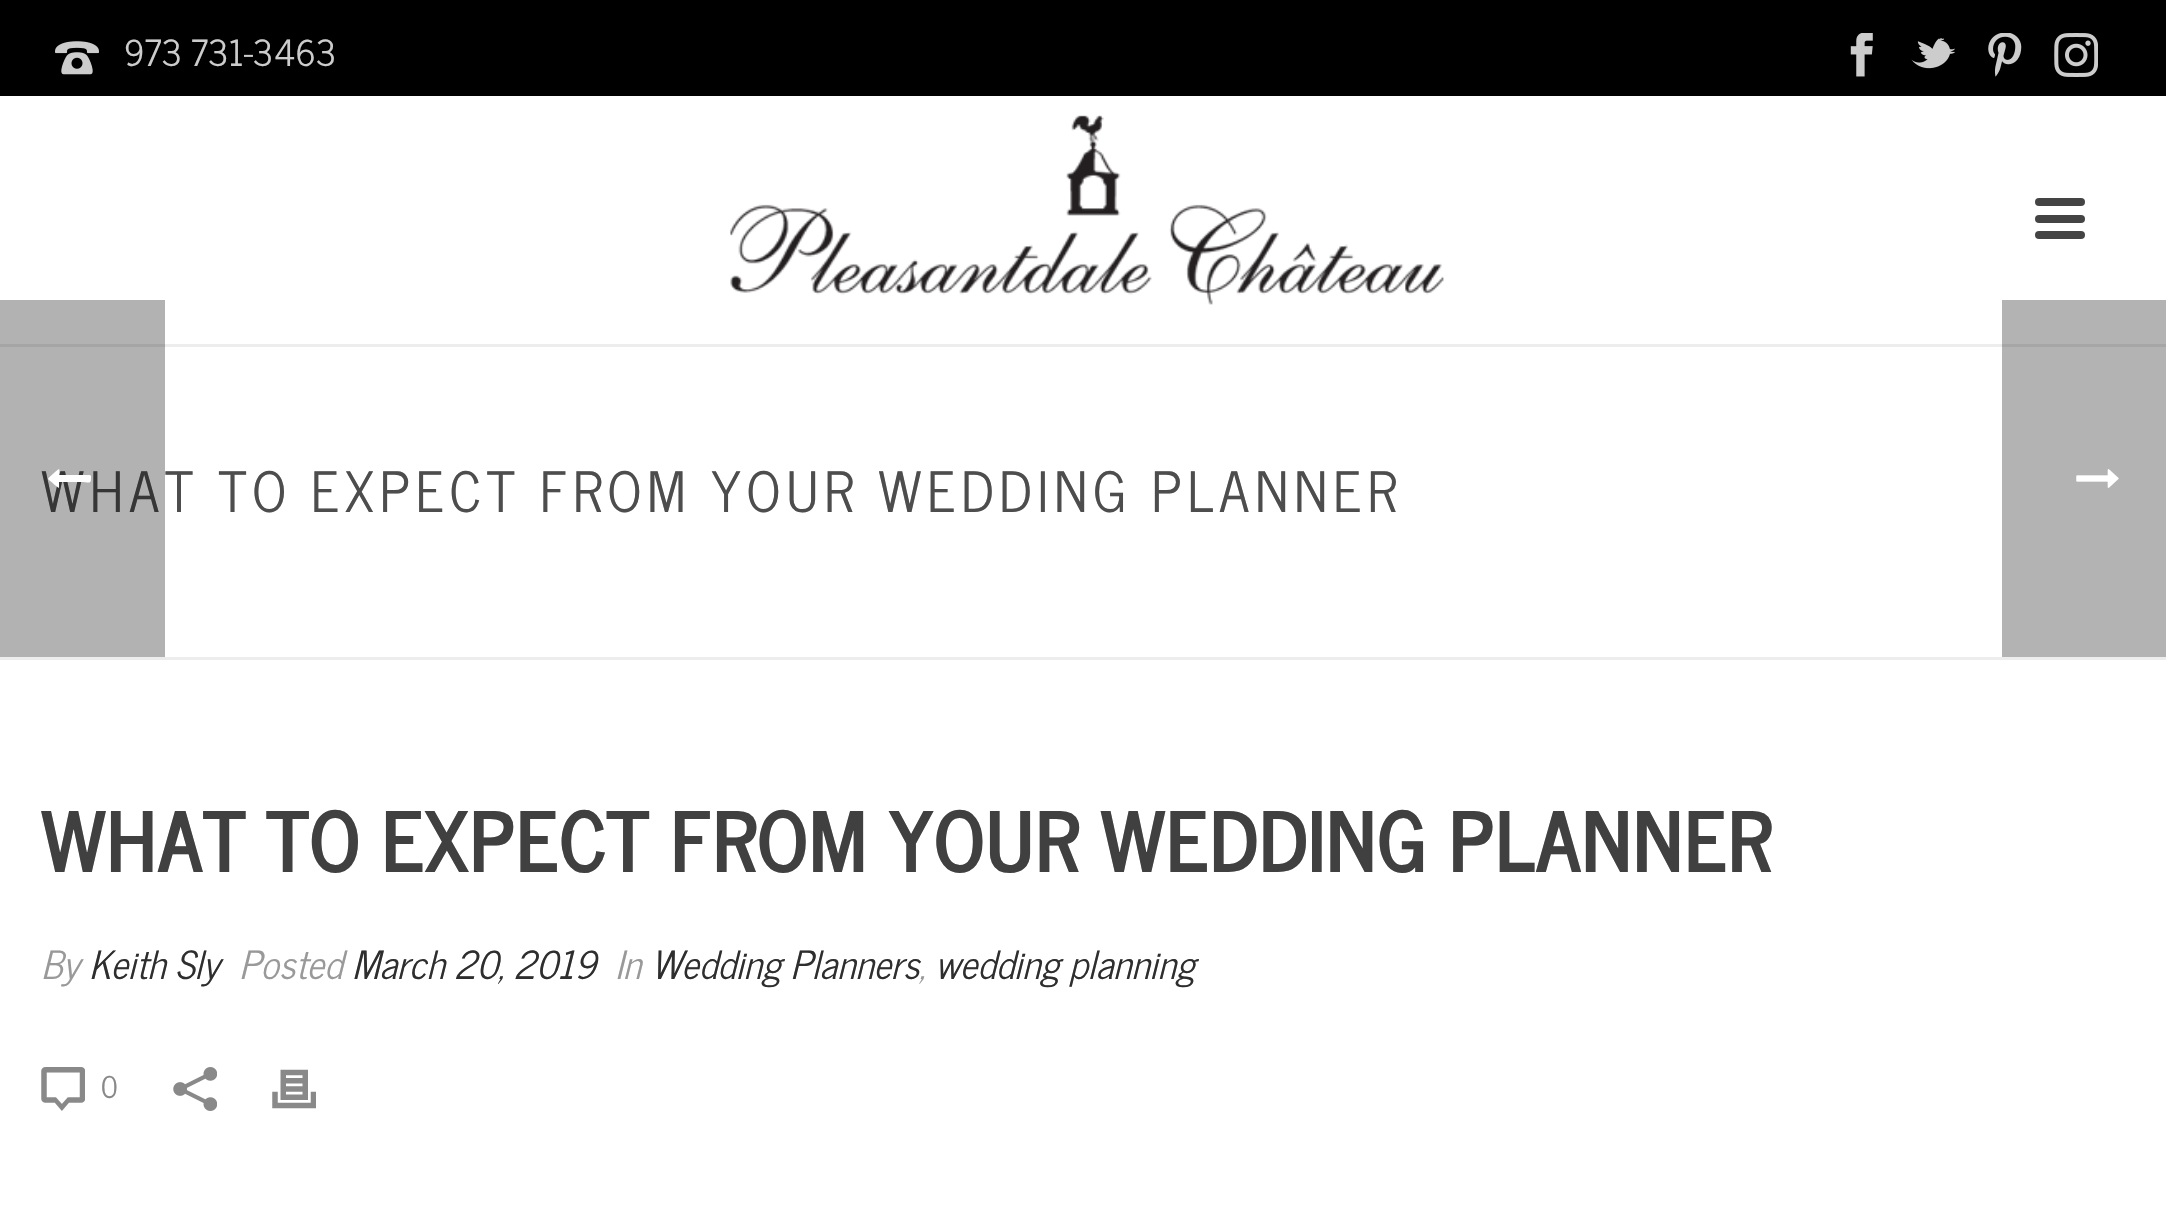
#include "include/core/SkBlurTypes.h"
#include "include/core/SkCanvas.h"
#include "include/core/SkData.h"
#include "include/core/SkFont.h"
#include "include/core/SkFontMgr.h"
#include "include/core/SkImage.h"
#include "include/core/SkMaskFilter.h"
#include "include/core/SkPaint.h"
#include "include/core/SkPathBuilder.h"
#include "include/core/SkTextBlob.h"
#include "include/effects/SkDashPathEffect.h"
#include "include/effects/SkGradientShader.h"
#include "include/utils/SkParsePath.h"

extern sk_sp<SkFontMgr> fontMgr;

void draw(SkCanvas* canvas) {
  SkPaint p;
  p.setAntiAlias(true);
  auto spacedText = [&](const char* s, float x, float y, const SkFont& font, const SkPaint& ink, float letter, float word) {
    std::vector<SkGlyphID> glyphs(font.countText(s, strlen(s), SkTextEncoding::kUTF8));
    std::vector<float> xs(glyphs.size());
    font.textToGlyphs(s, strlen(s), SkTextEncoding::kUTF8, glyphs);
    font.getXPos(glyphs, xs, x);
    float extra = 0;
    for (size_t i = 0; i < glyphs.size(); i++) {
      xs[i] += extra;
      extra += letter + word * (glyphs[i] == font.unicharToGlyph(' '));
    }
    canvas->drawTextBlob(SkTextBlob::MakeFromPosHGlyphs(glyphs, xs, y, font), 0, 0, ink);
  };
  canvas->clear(SK_ColorWHITE);
  p.setColor(SkColorSetRGB(179, 179, 179));
  canvas->drawRect(SkRect::MakeLTRB(2002, 300, 2166, 657), p);
  p.setColor(SkColorSetRGB(237, 237, 237));
  canvas->drawRect(SkRect::MakeLTRB(0, 657, 2166, 660), p);
  p.setColor(SK_ColorBLACK);
  canvas->drawRect(SkRect::MakeLTRB(0, 0, 2166, 96), p);
  canvas->drawImageRect(SkImages::DeferredFromEncodedData(SkData::MakeFromFileName("images/1.png")), SkRect::MakeLTRB(55, 41, 99, 75), SkSamplingOptions());
  canvas->drawImageRect(SkImages::DeferredFromEncodedData(SkData::MakeFromFileName("images/2.png")), SkRect::MakeLTRB(1850, 33, 1873, 77), SkSamplingOptions());
  canvas->drawImageRect(SkImages::DeferredFromEncodedData(SkData::MakeFromFileName("images/3.png")), SkRect::MakeLTRB(1911, 38, 1955, 69), SkSamplingOptions());
  canvas->drawImageRect(SkImages::DeferredFromEncodedData(SkData::MakeFromFileName("images/4.png")), SkRect::MakeLTRB(1988, 33, 2022, 77), SkSamplingOptions());
  canvas->drawImageRect(SkImages::DeferredFromEncodedData(SkData::MakeFromFileName("images/5.png")), SkRect::MakeLTRB(2054, 33, 2098, 77), SkSamplingOptions());
  p.setColor(SkColorSetRGB(237, 237, 237));
  canvas->drawRect(SkRect::MakeLTRB(0, 344, 2002, 347), p);
  p.setColor(SkColorSetRGB(166, 166, 166));
  canvas->drawRect(SkRect::MakeLTRB(2002, 344, 2166, 347), p);
  canvas->drawImageRect(SkImages::DeferredFromEncodedData(SkData::MakeFromFileName("images/6.png")), SkRect::MakeLTRB(730, 115, 1444, 305), SkSamplingOptions());
  p.setColor(SkColorSetRGB(68, 68, 68));
  canvas->drawRoundRect(SkRect::MakeLTRB(2035, 198, 2085, 206), 4, 4, p);
  canvas->drawRoundRect(SkRect::MakeLTRB(2035, 215, 2085, 223), 4, 4, p);
  canvas->drawRoundRect(SkRect::MakeLTRB(2035, 231, 2085, 239), 4, 4, p);
  canvas->drawImageRect(SkImages::DeferredFromEncodedData(SkData::MakeFromFileName("images/7.png")), SkRect::MakeLTRB(41, 1067, 85, 1111), SkSamplingOptions());
  canvas->drawImageRect(SkImages::DeferredFromEncodedData(SkData::MakeFromFileName("images/8.png")), SkRect::MakeLTRB(173, 1067, 217, 1111), SkSamplingOptions());
  canvas->drawImageRect(SkImages::DeferredFromEncodedData(SkData::MakeFromFileName("images/9.png")), SkRect::MakeLTRB(272, 1069, 316, 1109), SkSamplingOptions());
  canvas->drawImageRect(SkImages::DeferredFromEncodedData(SkData::MakeFromFileName("images/10.png")), SkRect::MakeLTRB(2076, 469, 2119, 488), SkSamplingOptions());
  SkFont font1(fontMgr->matchFamilyStyle("News Cycle", SkFontStyle::Normal()), 35.75f);
  font1.setSubpixel(true);
  p.setColor(SkColorSetRGB(204, 204, 204));
  canvas->drawString("973 731-3463", 124, 66, font1, p);
  SkFont font2(fontMgr->matchFamilyStyle("News Cycle", SkFontStyle::Normal()), 55);
  font2.setSubpixel(true);
  p.setColor(SkColorSetRGB(77, 77, 77));
  spacedText("WHAT TO EXPECT FROM YOUR WEDDING PLANNER", 41, 512, font2, p, 5.5f, 0);
  SkFont font3(fontMgr->matchFamilyStyle("News Cycle", SkFontStyle::Bold()), 82.5f);
  font3.setSubpixel(true);
  p.setColor(SkColorSetRGB(64, 64, 64));
  canvas->drawString("WHAT TO EXPECT FROM YOUR WEDDING PLANNER", 41, 872, font3, p);
  SkFont font4(fontMgr->matchFamilyStyle("News Cycle", SkFontStyle::Italic()), 38.5f);
  font4.setSubpixel(true);
  p.setColor(SkColorSetRGB(153, 153, 153));
  canvas->drawString("By", 41, 979, font4, p);
  p.setColor(SkColorSetRGB(46, 46, 46));
  canvas->drawString("Keith Sly", 89, 979, font4, p);
  p.setColor(SkColorSetRGB(153, 153, 153));
  canvas->drawString("Posted", 239, 979, font4, p);
  p.setColor(SkColorSetRGB(46, 46, 46));
  canvas->drawString("March 20, 2019", 352, 979, font4, p);
  p.setColor(SkColorSetRGB(153, 153, 153));
  canvas->drawString("In", 615, 979, font4, p);
  p.setColor(SkColorSetRGB(46, 46, 46));
  canvas->drawString("Wedding Planners", 651, 979, font4, p);
  p.setColor(SkColorSetRGB(153, 153, 153));
  canvas->drawString(",", 919, 979, font4, p);
  p.setColor(SkColorSetRGB(46, 46, 46));
  canvas->drawString("wedding planning", 935, 979, font4, p);
  SkFont font5(fontMgr->matchFamilyStyle("News Cycle", SkFontStyle::Normal()), 30);
  font5.setSubpixel(true);
  p.setColor(SkColorSetRGB(137, 137, 137));
  canvas->drawString("0", 101, 1098, font5, p);
  p.setColor(SkColorSetARGB(77, 0, 0, 0));
  canvas->drawRect(SkRect::MakeLTRB(0, 300, 165, 657), p);
  p.setColor(SK_ColorWHITE);
  canvas->drawPath(SkPathBuilder().moveTo(91, 476).cubicTo(91, 485, 91, 482, 80, 482).lineTo(59, 482).lineTo(59, 488).cubicTo(58, 488, 48, 479, 48, 479).cubicTo(48, 478, 58, 469, 59, 469).cubicTo(60, 470, 59, 474, 59, 475).lineTo(90, 475).close().detach(), p);
}
